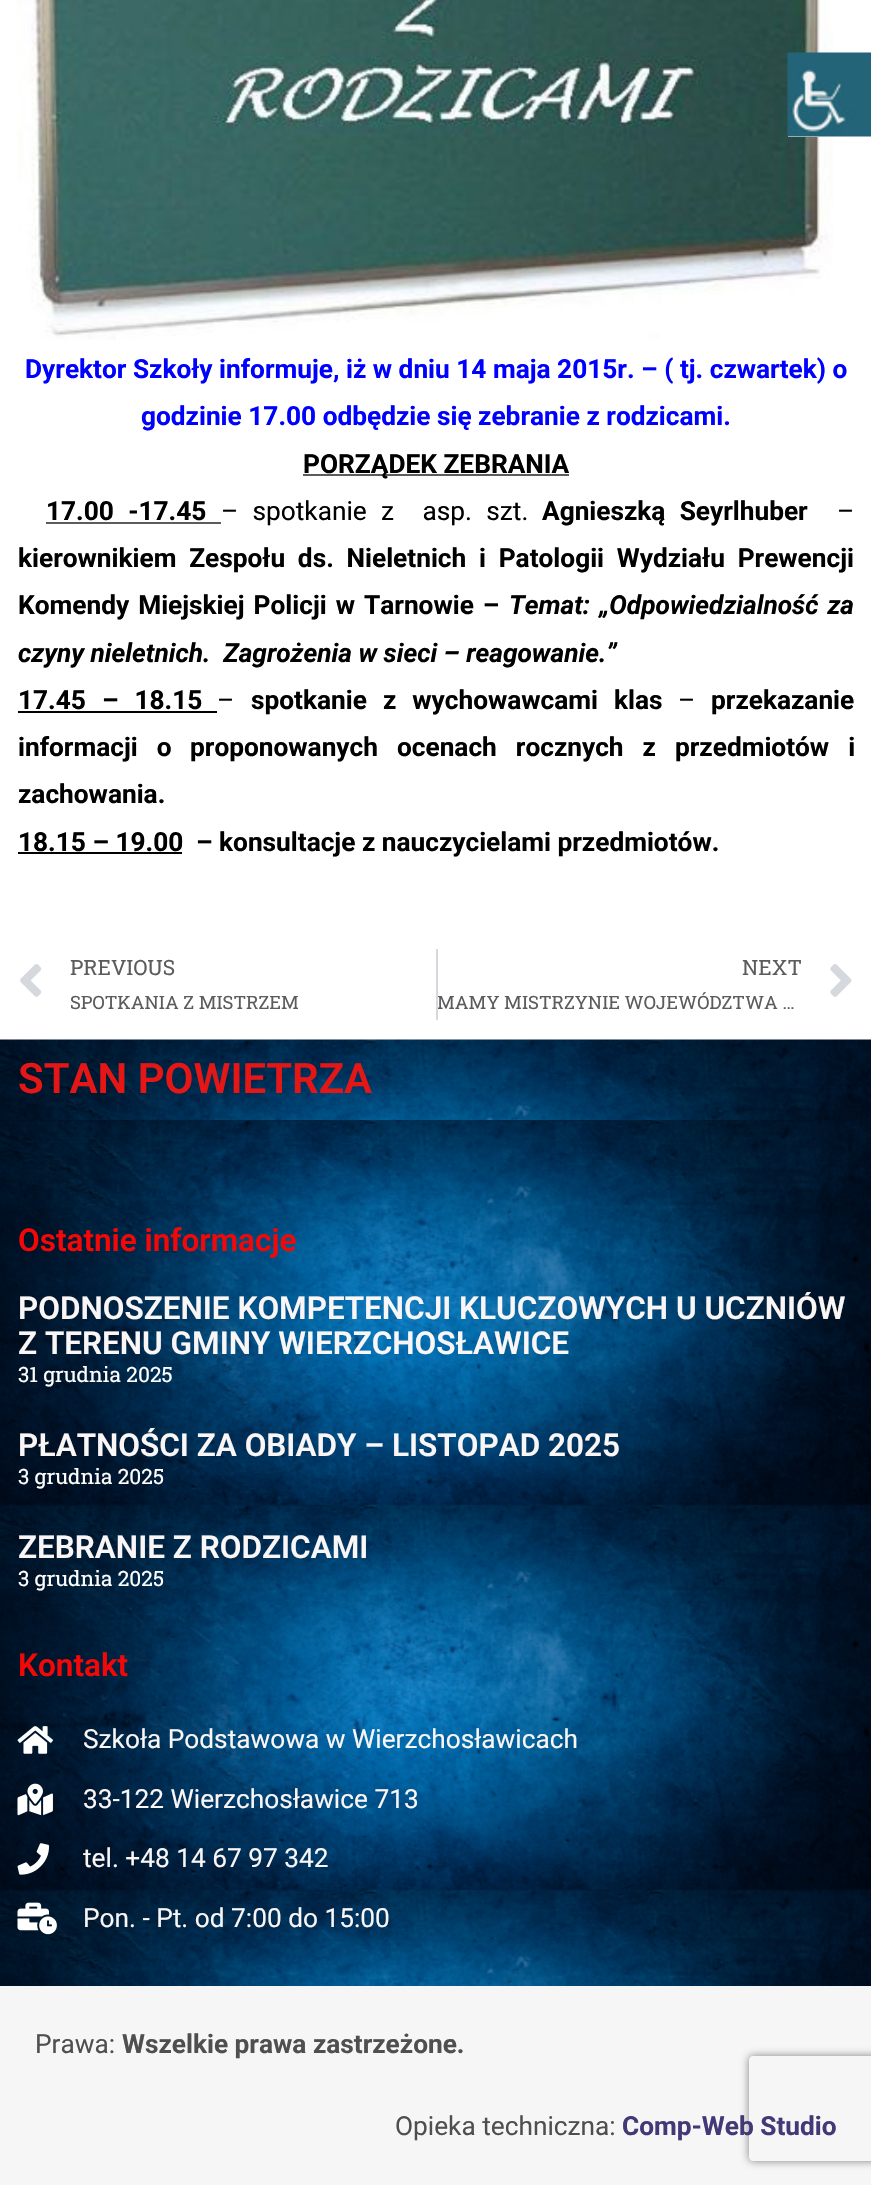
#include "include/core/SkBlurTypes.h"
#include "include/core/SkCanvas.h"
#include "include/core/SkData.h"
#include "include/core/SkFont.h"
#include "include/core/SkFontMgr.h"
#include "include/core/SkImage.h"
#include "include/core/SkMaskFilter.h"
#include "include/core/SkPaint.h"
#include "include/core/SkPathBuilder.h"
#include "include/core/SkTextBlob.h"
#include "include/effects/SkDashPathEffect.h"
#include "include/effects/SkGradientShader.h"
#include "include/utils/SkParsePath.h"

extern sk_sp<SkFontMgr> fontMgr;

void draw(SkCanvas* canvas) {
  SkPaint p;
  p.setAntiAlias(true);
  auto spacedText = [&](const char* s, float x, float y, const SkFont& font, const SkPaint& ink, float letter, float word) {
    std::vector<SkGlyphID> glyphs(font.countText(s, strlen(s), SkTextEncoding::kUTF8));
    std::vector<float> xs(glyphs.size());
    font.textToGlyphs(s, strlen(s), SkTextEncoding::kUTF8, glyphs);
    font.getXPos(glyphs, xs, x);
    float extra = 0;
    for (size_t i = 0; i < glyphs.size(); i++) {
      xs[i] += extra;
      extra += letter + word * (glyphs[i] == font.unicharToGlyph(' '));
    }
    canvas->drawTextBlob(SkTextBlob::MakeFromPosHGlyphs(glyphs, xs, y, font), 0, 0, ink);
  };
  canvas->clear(SK_ColorWHITE);
  canvas->drawImageRect(SkImages::DeferredFromEncodedData(SkData::MakeFromFileName("images/2.png")), SkRect::MakeLTRB(17, 0, 833, 340), SkSamplingOptions());
  p.setColor(SK_ColorWHITE);
  canvas->drawRect(SkRect::MakeLTRB(788, 136, 833, 137), p);
  canvas->drawImageRect(SkImages::DeferredFromEncodedData(SkData::MakeFromFileName("images/1.png")), SkRect::MakeLTRB(787, 52, 871, 137), SkSamplingOptions());
  p.setColor(SkColorSetRGB(92, 92, 92));
  canvas->drawRect(SkRect::MakeLTRB(303, 474, 569, 476), p);
  canvas->drawRect(SkRect::MakeLTRB(46, 522, 221, 524), p);
  p.setColor(SK_ColorBLACK);
  canvas->drawRect(SkRect::MakeLTRB(18, 711, 217, 713), p);
  canvas->drawRect(SkRect::MakeLTRB(18, 852, 182, 854), p);
  canvas->drawImageRect(SkImages::DeferredFromEncodedData(SkData::MakeFromFileName("images/3.png")), SkRect::MakeLTRB(20, 964, 42, 997), SkSamplingOptions());
  p.setColor(SkColorSetRGB(213, 216, 220));
  canvas->drawRect(SkRect::MakeLTRB(436, 949, 438, 1020), p);
  canvas->drawImageRect(SkImages::DeferredFromEncodedData(SkData::MakeFromFileName("images/4.png")), SkRect::MakeLTRB(830, 964, 852, 997), SkSamplingOptions());
  canvas->drawImageRect(SkImages::DeferredFromEncodedData(SkData::MakeFromFileName("images/5.png")), SkRect::MakeLTRB(0, 1039, 871, 1120), SkSamplingOptions());
  canvas->drawImageRect(SkImages::DeferredFromEncodedData(SkData::MakeFromFileName("images/6.png")), SkRect::MakeLTRB(0, 1120, 871, 1986), SkSamplingOptions());
  canvas->drawImageRect(SkImages::DeferredFromEncodedData(SkData::MakeFromFileName("images/7.png")), SkRect::MakeLTRB(17, 1726, 53, 1754), SkSamplingOptions());
  canvas->drawImageRect(SkImages::DeferredFromEncodedData(SkData::MakeFromFileName("images/8.png")), SkRect::MakeLTRB(17, 1783, 53, 1816), SkSamplingOptions());
  canvas->drawImageRect(SkImages::DeferredFromEncodedData(SkData::MakeFromFileName("images/9.png")), SkRect::MakeLTRB(17, 1843, 50, 1875), SkSamplingOptions());
  canvas->drawImageRect(SkImages::DeferredFromEncodedData(SkData::MakeFromFileName("images/10.png")), SkRect::MakeLTRB(17, 1902, 57, 1935), SkSamplingOptions());
  p.setColor(SkColorSetRGB(246, 246, 246));
  canvas->drawRect(SkRect::MakeLTRB(0, 1986, 871, 2185), p);
  canvas->save();
  canvas->clipPath(SkPathBuilder(SkPathFillType::kEvenOdd).moveTo(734, 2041).lineTo(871, 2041).lineTo(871, 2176).lineTo(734, 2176).close().moveTo(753, 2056).lineTo(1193, 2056).cubicTo(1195, 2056, 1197, 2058, 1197, 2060).lineTo(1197, 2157).cubicTo(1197, 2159, 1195, 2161, 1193, 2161).lineTo(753, 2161).cubicTo(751, 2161, 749, 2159, 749, 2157).lineTo(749, 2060).cubicTo(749, 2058, 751, 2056, 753, 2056).close().detach(), true);
  p.setColor(SkColorSetRGB(128, 128, 128));
  p.setMaskFilter(SkMaskFilter::MakeBlur(kNormal_SkBlurStyle, 4.5f));
  canvas->drawRoundRect(SkRect::MakeLTRB(749, 2056, 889, 2161), 4, 4, p);
  p.setMaskFilter(nullptr);
  canvas->restore();
  SkFont font1(fontMgr->matchFamilyStyle("Roboto", SkFontStyle::Bold()), 26.25f);
  font1.setSubpixel(true);
  p.setColor(SkColorSetRGB(0, 0, 255));
  canvas->drawString("Dyrektor Szkoły informuje, iż w dniu 14 maja 2015r. – ( tj. czwartek) o", 25, 378, font1, p);
  canvas->drawString("godzinie 17.00 odbędzie się zebranie z rodzicami.", 141, 425, font1, p);
  p.setColor(SK_ColorBLACK);
  canvas->drawString("PORZĄDEK ZEBRANIA", 303, 473, font1, p);
  spacedText("17.00 -17.45", 46, 520, font1, p, 0, 7.75f);
  SkFont font2(fontMgr->matchFamilyStyle("Roboto", SkFontStyle::Normal()), 26.25f);
  font2.setSubpixel(true);
  spacedText("– spotkanie z  asp. szt.", 221, 520, font2, p, 0, 7.75f);
  spacedText("Agnieszką Seyrlhuber", 542, 520, font1, p, 0, 7.75f);
  canvas->drawString("–", 837, 520, font2, p);
  spacedText("kierownikiem Zespołu ds. Nieletnich i Patologii Wydziału Prewencji", 18, 567, font1, p, 0, 6.25f);
  spacedText("Komendy Miejskiej Policji w Tarnowie –", 18, 614, font1, p, 0, 2.5f);
  SkFont font3(fontMgr->matchFamilyStyle("Roboto", SkFontStyle::BoldItalic()), 26.25f);
  font3.setSubpixel(true);
  spacedText("Temat: „Odpowiedzialność za", 509, 614, font3, p, 0, 2.5f);
  canvas->drawString("czyny nieletnich.  Zagrożenia w sieci – reagowanie.”", 18, 662, font3, p);
  spacedText("17.45 – 18.15", 18, 709, font1, p, 0, 9.5f);
  canvas->drawString("–", 217, 709, font2, p);
  spacedText("spotkanie z wychowawcami klas", 251, 709, font1, p, 0, 9.5f);
  canvas->drawString("–", 678, 709, font2, p);
  canvas->drawString("przekazanie", 711, 709, font1, p);
  spacedText("informacji o", 18, 756, font1, p, 0, 12.5f);
  spacedText("proponowanych ocenach rocznych z przedmiotów i", 190, 756, font1, p, 0, 12.5f);
  canvas->drawString("zachowania.", 18, 803, font1, p);
  canvas->drawString("18.15 – 19.00", 18, 851, font1, p);
  canvas->drawString("– konsultacje z nauczycielami przedmiotów.", 196, 851, font1, p);
  SkFont font4(fontMgr->matchFamilyStyle("Roboto Slab", SkFontStyle::Normal()), 21);
  font4.setSubpixel(true);
  p.setColor(SkColorSetRGB(92, 92, 92));
  canvas->drawString("PREVIOUS", 70, 975, font4, p);
  SkFont font5(fontMgr->matchFamilyStyle("Roboto Slab", SkFontStyle::Normal()), 18.4f);
  font5.setSubpixel(true);
  canvas->drawString("SPOTKANIA Z MISTRZEM", 70, 1009, font5, p);
  canvas->drawString("NEXT", 742, 975, font4, p);
  canvas->save();
  canvas->clipRect(SkRect::MakeLTRB(438, 987, 802, 1020));
  canvas->drawString("MAMY MISTRZYNIE WOJEWÓDZTWA …", 437, 1009, font5, p);
  canvas->restore();
  SkFont font6(fontMgr->matchFamilyStyle("Roboto", SkFontStyle(600, SkFontStyle::kNormal_Width, SkFontStyle::kUpright_Slant)), 42);
  font6.setSubpixel(true);
  p.setColor(SkColorSetRGB(229, 22, 22));
  canvas->drawString("STAN POWIETRZA", 18, 1093, font6, p);
  SkFont font7(fontMgr->matchFamilyStyle("Roboto", SkFontStyle(600, SkFontStyle::kNormal_Width, SkFontStyle::kUpright_Slant)), 31.5f);
  font7.setSubpixel(true);
  p.setColor(SkColorSetRGB(243, 7, 7));
  canvas->drawString("Ostatnie informacje", 18, 1251, font7, p);
  canvas->save();
  canvas->clipRect(SkRect::MakeLTRB(18, 1292, 854, 1411));
  p.setColor(SkColorSetRGB(251, 246, 246));
  canvas->drawString("PODNOSZENIE KOMPETENCJI KLUCZOWYCH U UCZNIÓW", 18, 1319, font7, p);
  canvas->restore();
  canvas->drawString("Z TERENU GMINY WIERZCHOSŁAWICE", 18, 1354, font7, p);
  p.setColor(SK_ColorWHITE);
  canvas->drawString("31 grudnia 2025", 18, 1382, font4, p);
  canvas->save();
  canvas->clipRect(SkRect::MakeLTRB(18, 1428, 854, 1514));
  p.setColor(SkColorSetRGB(251, 246, 246));
  canvas->drawString("PŁATNOŚCI ZA OBIADY – LISTOPAD 2025", 18, 1456, font7, p);
  canvas->restore();
  p.setColor(SK_ColorWHITE);
  canvas->drawString("3 grudnia 2025", 18, 1484, font4, p);
  p.setColor(SkColorSetRGB(251, 246, 246));
  canvas->drawString("ZEBRANIE Z RODZICAMI", 18, 1558, font7, p);
  p.setColor(SK_ColorWHITE);
  canvas->drawString("3 grudnia 2025", 18, 1586, font4, p);
  p.setColor(SkColorSetRGB(243, 7, 7));
  canvas->drawString("Kontakt", 18, 1676, font7, p);
  p.setColor(SkColorSetRGB(251, 246, 246));
  canvas->drawString("Szkoła Podstawowa w Wierzchosławicach", 83, 1748, font2, p);
  canvas->drawString("33-122 Wierzchosławice 713", 83, 1808, font2, p);
  canvas->drawString("tel. +48 14 67 97 342", 83, 1867, font2, p);
  canvas->drawString("Pon. - Pt. od 7:00 do 15:00", 83, 1927, font2, p);
  p.setColor(SkColorSetRGB(79, 79, 79));
  canvas->drawString("Prawa:", 35, 2053, font2, p);
  canvas->drawString("Wszelkie prawa zastrzeżone.", 122, 2053, font1, p);
  canvas->drawString("Opieka techniczna:", 395, 2135, font2, p);
  p.setColor(SkColorSetRGB(66, 57, 119));
  canvas->drawString("Comp-Web Studio", 622, 2135, font1, p);
}
